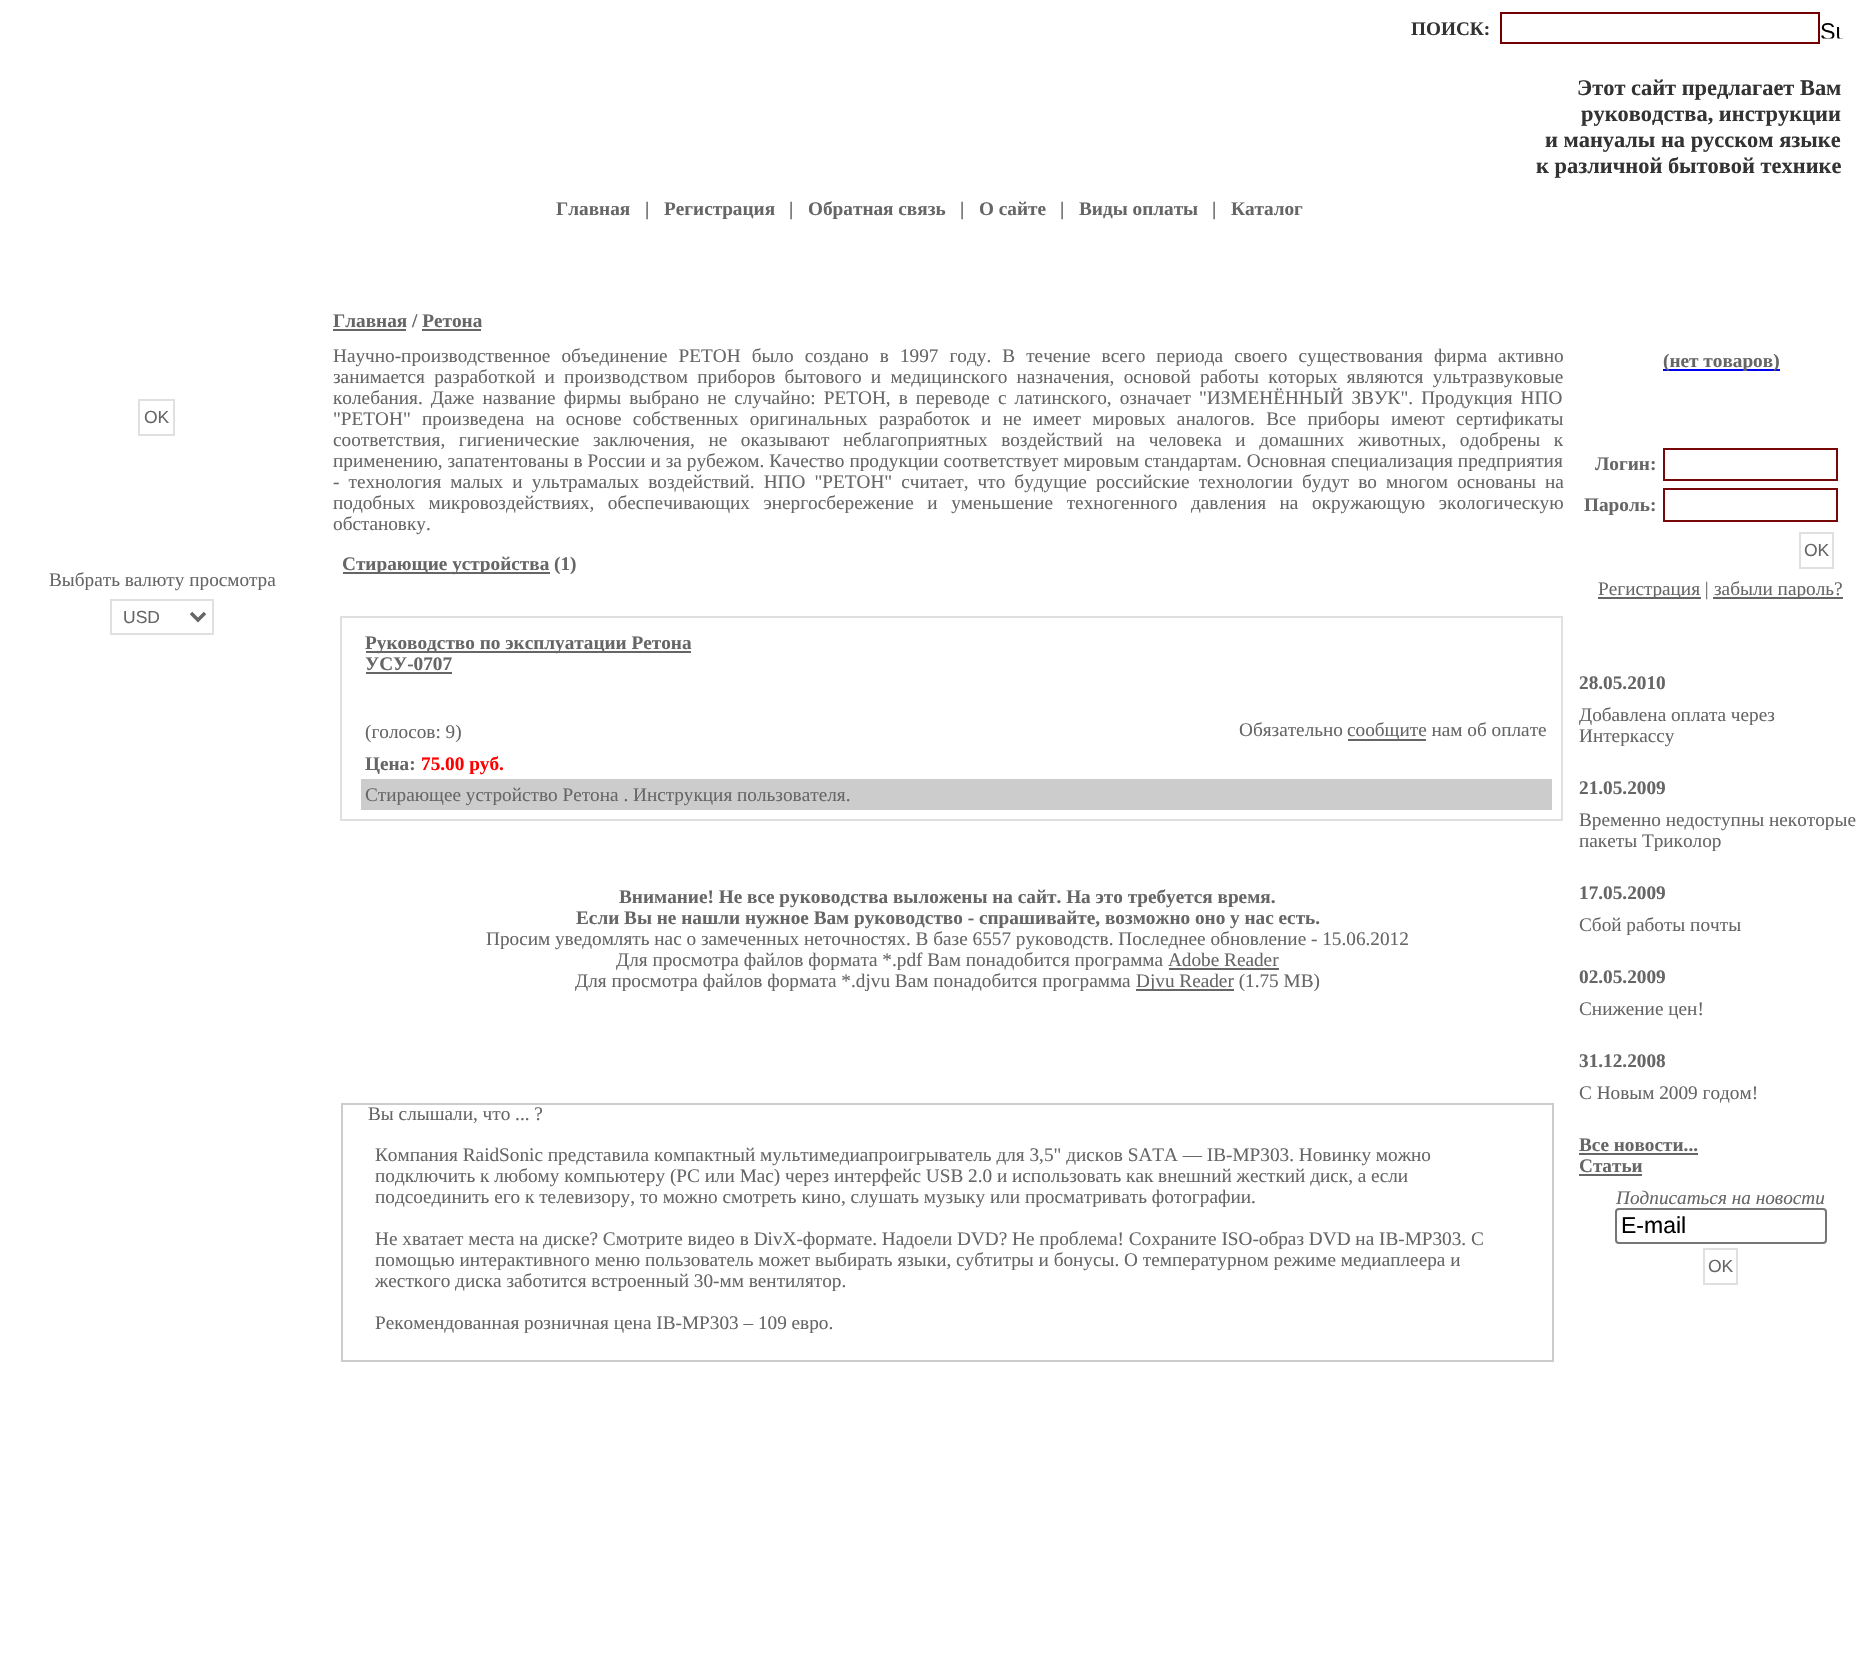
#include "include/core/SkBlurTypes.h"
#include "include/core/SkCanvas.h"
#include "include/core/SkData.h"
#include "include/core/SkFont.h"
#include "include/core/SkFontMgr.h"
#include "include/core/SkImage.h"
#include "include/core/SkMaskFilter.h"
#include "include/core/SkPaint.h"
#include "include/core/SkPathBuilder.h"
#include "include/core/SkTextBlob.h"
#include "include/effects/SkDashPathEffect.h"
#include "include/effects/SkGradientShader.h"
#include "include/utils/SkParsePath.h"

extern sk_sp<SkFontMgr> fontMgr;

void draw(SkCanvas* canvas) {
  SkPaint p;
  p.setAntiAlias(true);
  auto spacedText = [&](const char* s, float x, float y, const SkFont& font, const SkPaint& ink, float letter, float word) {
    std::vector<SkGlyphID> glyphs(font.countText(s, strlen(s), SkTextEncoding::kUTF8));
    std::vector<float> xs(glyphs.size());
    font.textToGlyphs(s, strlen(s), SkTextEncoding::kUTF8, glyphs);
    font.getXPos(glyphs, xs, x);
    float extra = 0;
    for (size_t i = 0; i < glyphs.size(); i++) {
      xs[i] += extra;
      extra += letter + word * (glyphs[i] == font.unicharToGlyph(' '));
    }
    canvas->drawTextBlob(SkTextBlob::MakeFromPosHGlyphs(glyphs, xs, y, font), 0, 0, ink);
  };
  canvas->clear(SK_ColorWHITE);
  p.setStyle(SkPaint::kStroke_Style);
  p.setStrokeWidth(2);
  p.setColor(SkColorSetRGB(114, 0, 0));
  canvas->drawRect(SkRect::MakeLTRB(1501, 13, 1819, 43), p);
  canvas->drawImageRect(SkImages::DeferredFromEncodedData(SkData::MakeFromFileName("images/1.png")), SkRect::MakeLTRB(1821, 23, 1843, 39), SkSamplingOptions());
  p.setColor(SkColorSetRGB(224, 224, 224));
  canvas->drawRect(SkRect::MakeLTRB(139, 400, 174, 435), p);
  canvas->drawRect(SkRect::MakeLTRB(111, 600, 213, 634), p);
  p.setStrokeWidth(3.5f);
  p.setColor(SkColorSetRGB(102, 102, 102));
  canvas->drawPath(SkPathBuilder().moveTo(191, 613).lineTo(198, 620).lineTo(205, 613).detach(), p);
  p.setStyle(SkPaint::kFill_Style);
  canvas->drawRect(SkRect::MakeLTRB(333, 329, 406, 331), p);
  canvas->drawRect(SkRect::MakeLTRB(422, 329, 481, 331), p);
  canvas->drawRect(SkRect::MakeLTRB(343, 572, 550, 574), p);
  p.setStyle(SkPaint::kStroke_Style);
  p.setStrokeWidth(2);
  p.setColor(SkColorSetRGB(224, 224, 224));
  canvas->drawRect(SkRect::MakeLTRB(341, 617, 1562, 820), p);
  p.setStyle(SkPaint::kFill_Style);
  p.setColor(SkColorSetRGB(102, 102, 102));
  canvas->drawRect(SkRect::MakeLTRB(366, 651, 691, 653), p);
  canvas->drawRect(SkRect::MakeLTRB(366, 672, 452, 674), p);
  canvas->drawRect(SkRect::MakeLTRB(1348, 739, 1426, 741), p);
  p.setColor(SkColorSetRGB(204, 204, 204));
  canvas->drawRect(SkRect::MakeLTRB(361, 779, 1552, 810), p);
  p.setColor(SkColorSetRGB(102, 102, 102));
  canvas->drawRect(SkRect::MakeLTRB(1169, 968, 1279, 970), p);
  canvas->drawRect(SkRect::MakeLTRB(1136, 989, 1234, 991), p);
  p.setStyle(SkPaint::kStroke_Style);
  p.setColor(SkColorSetRGB(204, 204, 204));
  canvas->drawRect(SkRect::MakeLTRB(342, 1104, 1553, 1361), p);
  p.setStyle(SkPaint::kFill_Style);
  p.setColor(SkColorSetRGB(0, 0, 238));
  canvas->drawRect(SkRect::MakeLTRB(1663, 369, 1780, 371), p);
  p.setStyle(SkPaint::kStroke_Style);
  p.setColor(SkColorSetRGB(118, 8, 8));
  canvas->drawRect(SkRect::MakeLTRB(1664, 449, 1837, 480), p);
  canvas->drawRect(SkRect::MakeLTRB(1664, 489, 1837, 521), p);
  p.setColor(SkColorSetRGB(224, 224, 224));
  canvas->drawRect(SkRect::MakeLTRB(1800, 533, 1833, 568), p);
  p.setStyle(SkPaint::kFill_Style);
  p.setColor(SkColorSetRGB(102, 102, 102));
  canvas->drawRect(SkRect::MakeLTRB(1598, 597, 1701, 599), p);
  canvas->drawRect(SkRect::MakeLTRB(1713, 597, 1843, 599), p);
  canvas->drawRect(SkRect::MakeLTRB(1579, 1153, 1698, 1155), p);
  canvas->drawRect(SkRect::MakeLTRB(1579, 1174, 1642, 1176), p);
  p.setStyle(SkPaint::kStroke_Style);
  p.setColor(SkColorSetRGB(118, 118, 118));
  canvas->drawRoundRect(SkRect::MakeLTRB(1616, 1209, 1826, 1243), 3, 3, p);
  p.setColor(SkColorSetRGB(224, 224, 224));
  canvas->drawRect(SkRect::MakeLTRB(1704, 1249, 1737, 1284), p);
  SkFont font1(fontMgr->matchFamilyStyle("Liberation Serif", SkFontStyle::Bold()), 19.25f);
  font1.setSubpixel(true);
  p.setStyle(SkPaint::kFill_Style);
  p.setColor(SkColorSetRGB(51, 51, 51));
  canvas->drawString("ПОИСК:", 1411, 35, font1, p);
  SkFont font2(fontMgr->matchFamilyStyle("Liberation Serif", SkFontStyle::Bold()), 22.4f);
  font2.setSubpixel(true);
  canvas->drawString("Этот сайт предлагает Вам", 1577, 95, font2, p);
  canvas->drawString("руководства, инструкции", 1581, 121, font2, p);
  canvas->drawString("и мануалы на русском языке", 1545, 147, font2, p);
  canvas->drawString("к различной бытовой технике", 1536, 173, font2, p);
  p.setColor(SkColorSetRGB(102, 102, 102));
  canvas->drawString("Главная", 556, 215, font1, p);
  canvas->drawString("|", 645, 215, font1, p);
  canvas->drawString("Регистрация", 664, 215, font1, p);
  canvas->drawString("|", 789, 215, font1, p);
  canvas->drawString("Обратная связь", 808, 215, font1, p);
  canvas->drawString("|", 960, 215, font1, p);
  canvas->drawString("О сайте", 979, 215, font1, p);
  canvas->drawString("|", 1060, 215, font1, p);
  canvas->drawString("Виды оплаты", 1079, 215, font1, p);
  canvas->drawString("|", 1212, 215, font1, p);
  canvas->drawString("Каталог", 1231, 215, font1, p);
  SkFont font3(fontMgr->matchFamilyStyle("Liberation Sans", SkFontStyle::Normal()), 17.5f);
  font3.setSubpixel(true);
  canvas->drawString("OK", 144, 423, font3, p);
  SkFont font4(fontMgr->matchFamilyStyle("Liberation Serif", SkFontStyle::Normal()), 19.25f);
  font4.setSubpixel(true);
  canvas->drawString("Выбрать валюту просмотра", 49, 586, font4, p);
  canvas->drawString("USD", 123, 623, font3, p);
  canvas->drawString("Главная / Ретона", 333, 327, font1, p);
  spacedText("Научно-производственное объединение РЕТОН было создано в 1997 году. В течение всего периода своего существования фирма активно", 333, 362, font4, p, 0, 6.25f);
  spacedText("занимается разработкой и производством приборов бытового и медицинского назначения, основой работы которых являются ультразвуковые", 333, 383, font4, p, 0, 4.5f);
  spacedText("колебания. Даже название фирмы выбрано не случайно: РЕТОН, в переводе с латинского, означает \"ИЗМЕНЁННЫЙ ЗВУК\". Продукция НПО", 333, 404, font4, p, 0, 3.25f);
  spacedText("\"РЕТОН\" произведена на основе собственных оригинальных разработок и не имеет мировых аналогов. Все приборы имеют сертификаты", 333, 425, font4, p, 0, 6.5f);
  spacedText("соответствия, гигиенические заключения, не оказывают неблагоприятных воздействий на человека и домашних животных, одобрены к", 333, 446, font4, p, 0, 8.75f);
  spacedText("применению, запатентованы в России и за рубежом. Качество продукции соответствует мировым стандартам. Основная специализация предприятия", 333, 467, font4, p, 0, 0.1f);
  spacedText("- технология малых и ультрамалых воздействий. НПО \"РЕТОН\" считает, что будущие российские технологии будут во многом основаны на", 333, 488, font4, p, 0, 4.25f);
  spacedText("подобных микровоздействиях, обеспечивающих энергосбережение и уменьшение техногенного давления на окружающую экологическую", 333, 509, font4, p, 0, 8.75f);
  canvas->drawString("обстановку.", 333, 530, font4, p);
  canvas->drawString("Стирающие устройства (1)", 342, 570, font1, p);
  canvas->drawString("Руководство по эксплуатации Ретона", 365, 649, font1, p);
  canvas->drawString("УСУ-0707", 365, 670, font1, p);
  canvas->drawString("(голосов: 9)", 365, 738, font4, p);
  canvas->drawString("Обязательно", 1239, 736, font4, p);
  canvas->drawString("сообщите нам об оплате", 1347, 736, font4, p);
  canvas->drawString("Цена:", 365, 770, font1, p);
  p.setColor(SkColorSetRGB(255, 0, 0));
  canvas->drawString("75.00 руб.", 421, 770, font1, p);
  p.setColor(SkColorSetRGB(102, 102, 102));
  canvas->drawString("Стирающее устройство Ретона . Инструкция пользователя.", 365, 801, font4, p);
  canvas->drawString("Внимание! Не все руководства выложены на сайт. На это требуется время.", 619, 903, font1, p);
  canvas->drawString("Если Вы не нашли нужное Вам руководство - спрашивайте, возможно оно у нас есть.", 576, 924, font1, p);
  canvas->drawString("Просим уведомлять нас о замеченных неточностях. В базе 6557 руководств. Последнее обновление - 15.06.2012", 486, 945, font4, p);
  canvas->drawString("Для просмотра файлов формата *.pdf Вам понадобится программа Adobe Reader", 616, 966, font4, p);
  canvas->drawString("Для просмотра файлов формата *.djvu Вам понадобится программа", 575, 987, font4, p);
  canvas->drawString("Djvu Reader (1.75 MB)", 1136, 987, font4, p);
  canvas->drawString("Вы слышали, что ... ?", 368, 1120, font4, p);
  canvas->drawString("Компания RaidSonic представила компактный мультимедиапроигрыватель для 3,5\" дисков SATA — IB-MP303. Новинку можно", 375, 1161, font4, p);
  canvas->drawString("подключить к любому компьютеру (PC или Mac) через интерфейс USB 2.0 и использовать как внешний жесткий диск, а если", 375, 1182, font4, p);
  canvas->drawString("подсоединить его к телевизору, то можно смотреть кино, слушать музыку или просматривать фотографии.", 375, 1203, font4, p);
  canvas->drawString("Не хватает места на диске? Смотрите видео в DivX-формате. Надоели DVD? Не проблема! Сохраните ISO-образ DVD на IB-MP303. С", 375, 1245, font4, p);
  canvas->drawString("помощью интерактивного меню пользователь может выбирать языки, субтитры и бонусы. О температурном режиме медиаплеера и", 375, 1266, font4, p);
  canvas->drawString("жесткого диска заботится встроенный 30-мм вентилятор.", 375, 1287, font4, p);
  canvas->drawString("Рекомендованная розничная цена IB-MP303 – 109 евро.", 375, 1329, font4, p);
  canvas->drawString("(нет товаров)", 1663, 367, font1, p);
  canvas->drawString("Логин:", 1595, 470, font1, p);
  canvas->drawString("Пароль:", 1584, 511, font1, p);
  canvas->drawString("OK", 1804, 556, font3, p);
  canvas->drawString("Регистрация |", 1598, 595, font4, p);
  canvas->drawString("забыли пароль?", 1714, 595, font4, p);
  canvas->drawString("28.05.2010", 1579, 689, font1, p);
  canvas->drawString("Добавлена оплата через", 1579, 721, font4, p);
  canvas->drawString("Интеркассу", 1579, 742, font4, p);
  canvas->drawString("21.05.2009", 1579, 794, font1, p);
  canvas->drawString("Временно недоступны некоторые", 1579, 826, font4, p);
  canvas->drawString("пакеты Триколор", 1579, 847, font4, p);
  canvas->drawString("17.05.2009", 1579, 899, font1, p);
  canvas->drawString("Сбой работы почты", 1579, 931, font4, p);
  canvas->drawString("02.05.2009", 1579, 983, font1, p);
  canvas->drawString("Снижение цен!", 1579, 1015, font4, p);
  canvas->drawString("31.12.2008", 1579, 1067, font1, p);
  canvas->drawString("С Новым 2009 годом!", 1579, 1099, font4, p);
  canvas->drawString("Все новости...", 1579, 1151, font1, p);
  canvas->drawString("Статьи", 1579, 1172, font1, p);
  SkFont font5(fontMgr->matchFamilyStyle("Liberation Serif", SkFontStyle::Italic()), 19.25f);
  font5.setSubpixel(true);
  canvas->drawString("Подписаться на новости", 1616, 1204, font5, p);
  SkFont font6(fontMgr->matchFamilyStyle("Liberation Sans", SkFontStyle::Normal()), 23);
  font6.setSubpixel(true);
  p.setColor(SK_ColorBLACK);
  canvas->drawString("E-mail", 1621, 1233, font6, p);
  p.setColor(SkColorSetRGB(102, 102, 102));
  canvas->drawString("OK", 1708, 1272, font3, p);
}
